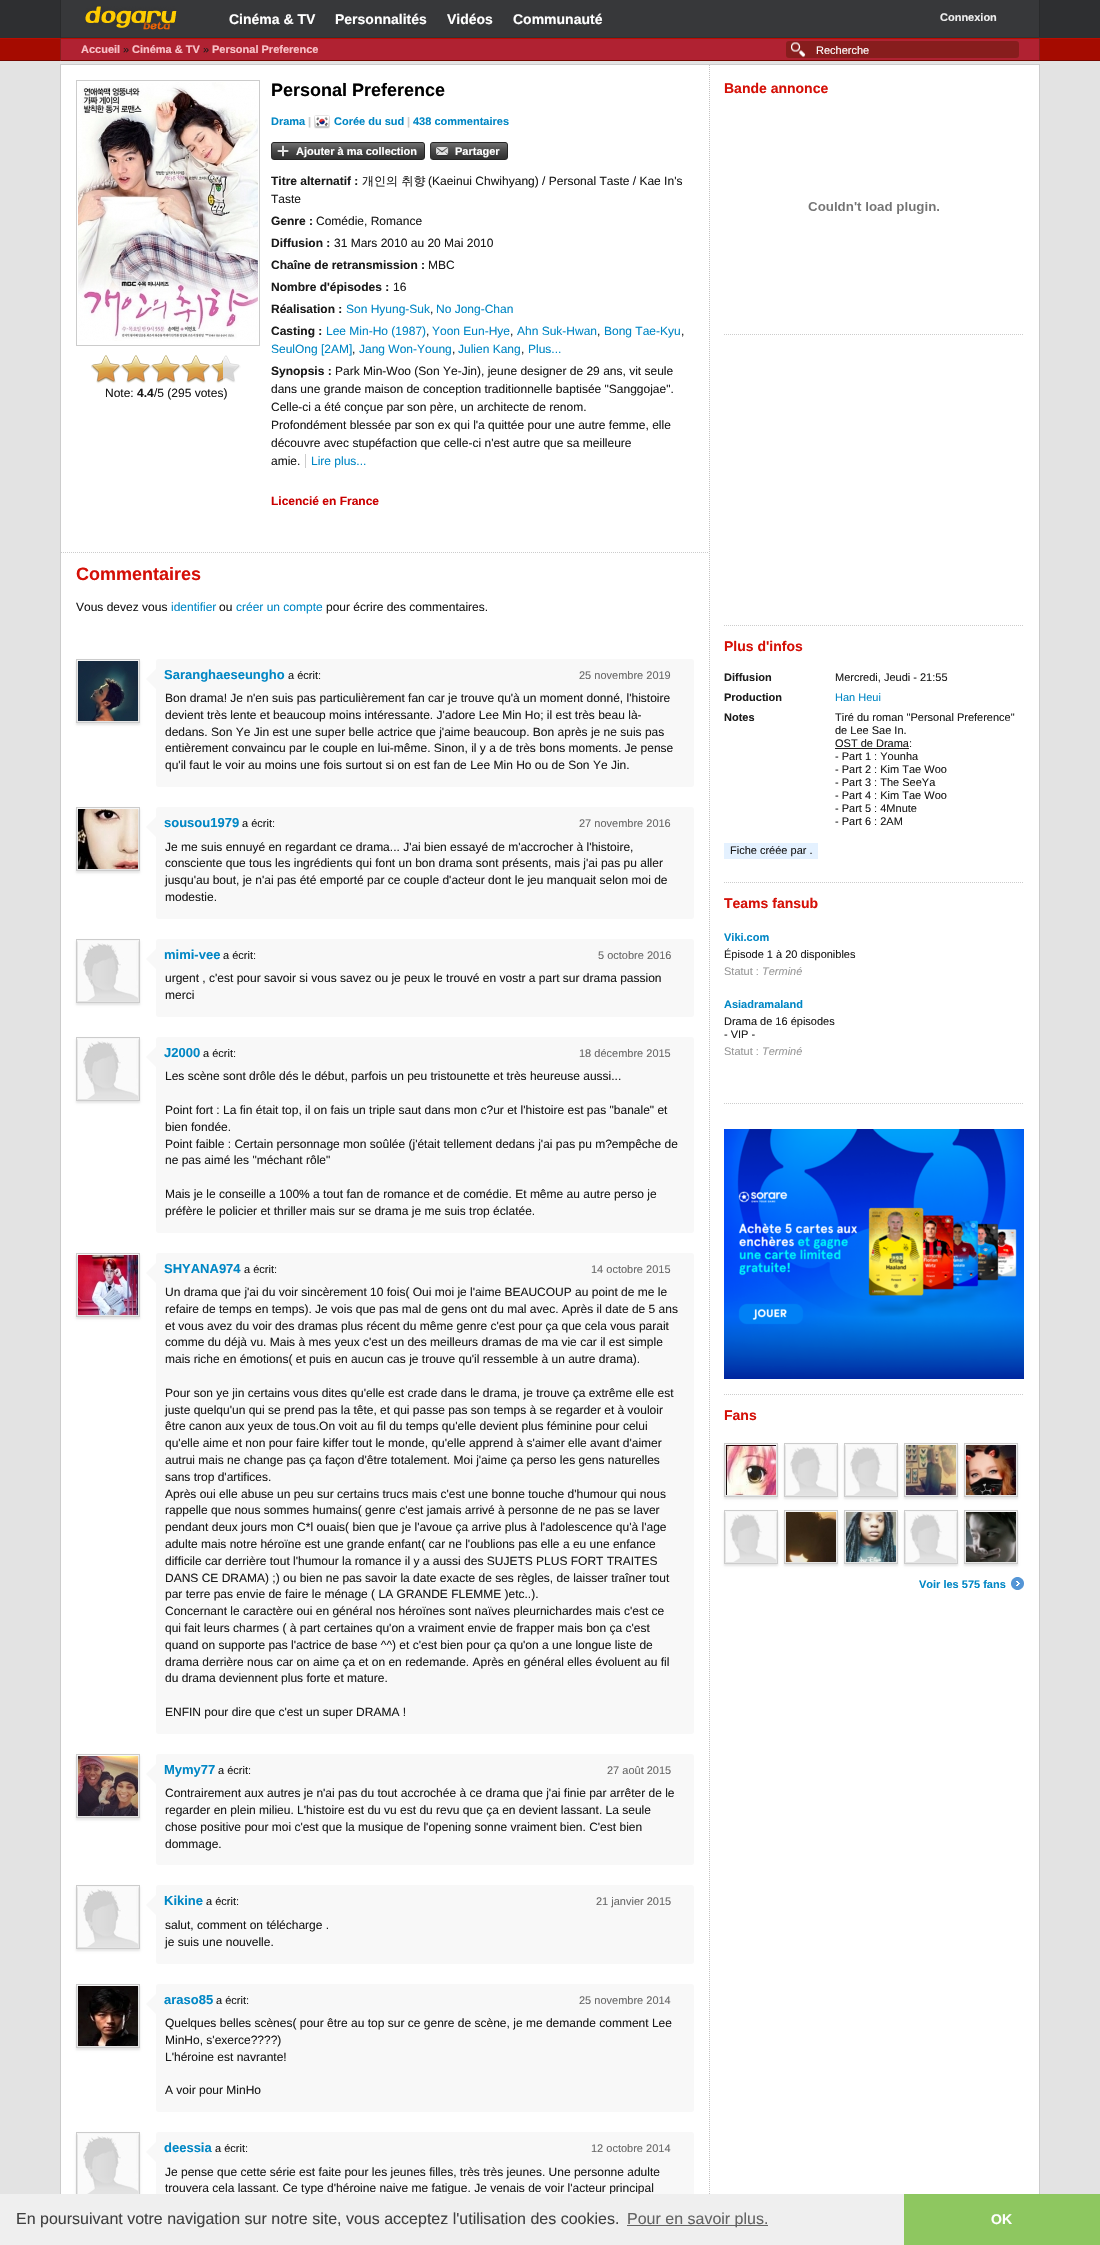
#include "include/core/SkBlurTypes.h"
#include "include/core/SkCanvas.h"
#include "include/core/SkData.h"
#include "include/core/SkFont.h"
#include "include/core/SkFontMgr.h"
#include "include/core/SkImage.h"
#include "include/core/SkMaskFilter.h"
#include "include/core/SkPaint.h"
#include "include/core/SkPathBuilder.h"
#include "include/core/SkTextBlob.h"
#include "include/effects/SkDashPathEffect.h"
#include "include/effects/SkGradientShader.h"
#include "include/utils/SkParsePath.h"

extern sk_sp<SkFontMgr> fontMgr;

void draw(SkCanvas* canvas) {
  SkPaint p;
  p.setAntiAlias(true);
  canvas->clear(SkColorSetRGB(227, 227, 227));
  canvas->drawImageRect(SkImages::DeferredFromEncodedData(SkData::MakeFromFileName("images/1.png")), SkRect::MakeLTRB(0, 0, 1100, 61), SkSamplingOptions());
  p.setColor(SkColorSetRGB(55, 56, 58));
  canvas->drawRect(SkRect::MakeLTRB(61, 0, 1039, 37), p);
  p.setColor(SkColorSetRGB(41, 42, 43));
  canvas->drawRect(SkRect::MakeLTRB(1039, 0, 1040, 38), p);
  p.setColor(SkColorSetRGB(49, 50, 51));
  canvas->drawRect(SkRect::MakeLTRB(60, 37, 1040, 38), p);
  p.setColor(SkColorSetRGB(41, 42, 43));
  canvas->drawRect(SkRect::MakeLTRB(60, 0, 61, 38), p);
  canvas->drawImageRect(SkImages::DeferredFromEncodedData(SkData::MakeFromFileName("images/2.png")), SkRect::MakeLTRB(85, 6, 177, 30), SkSamplingOptions());
  p.setColor(SkColorSetRGB(176, 34, 50));
  canvas->drawRect(SkRect::MakeLTRB(61, 39, 1039, 60), p);
  p.setColor(SkColorSetRGB(135, 29, 29));
  canvas->drawRect(SkRect::MakeLTRB(1039, 38, 1040, 61), p);
  p.setColor(SkColorSetRGB(118, 7, 0));
  canvas->drawRect(SkRect::MakeLTRB(1039, 60, 1040, 61), p);
  p.setColor(SkColorSetRGB(135, 29, 29));
  canvas->drawRect(SkRect::MakeLTRB(60, 38, 61, 61), p);
  canvas->drawRoundRect(SkRect::MakeLTRB(786, 41, 1019, 58), 3, 3, p);
  canvas->drawImageRect(SkImages::DeferredFromEncodedData(SkData::MakeFromFileName("images/3.png")), SkRect::MakeLTRB(791, 42, 806, 58), SkSamplingOptions());
  p.setColor(SK_ColorWHITE);
  canvas->drawRect(SkRect::MakeLTRB(61, 65, 1039, 2194), p);
  canvas->drawImageRect(SkImages::DeferredFromEncodedData(SkData::MakeFromFileName("images/4.png")), SkRect::MakeLTRB(709, 65, 710, 2194), SkSamplingOptions());
  p.setStyle(SkPaint::kStroke_Style);
  p.setStrokeWidth(1);
  p.setColor(SkColorSetRGB(204, 204, 204));
  canvas->drawRect(SkRect::MakeLTRB(60.5f, 64.5f, 1039.5f, 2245.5f), p);
  canvas->drawRect(SkRect::MakeLTRB(76.5f, 80.5f, 259.5f, 345.5f), p);
  canvas->drawImageRect(SkImages::DeferredFromEncodedData(SkData::MakeFromFileName("images/5.png")), SkRect::MakeLTRB(78, 82, 258, 341), SkSamplingOptions());
  canvas->drawImageRect(SkImages::DeferredFromEncodedData(SkData::MakeFromFileName("images/6.png")), SkRect::MakeLTRB(91, 355, 241, 383), SkSamplingOptions());
  canvas->drawImageRect(SkImages::DeferredFromEncodedData(SkData::MakeFromFileName("images/7.png")), SkRect::MakeLTRB(91, 355, 223, 384), SkSamplingOptions());
  canvas->drawImageRect(SkImages::DeferredFromEncodedData(SkData::MakeFromFileName("images/8.png")), SkRect::MakeLTRB(314, 115, 330, 129), SkSamplingOptions());
  canvas->drawImageRect(SkImages::DeferredFromEncodedData(SkData::MakeFromFileName("images/9.png")), SkRect::MakeLTRB(422, 142, 425, 160), SkSamplingOptions());
  canvas->drawImageRect(SkImages::DeferredFromEncodedData(SkData::MakeFromFileName("images/10.png")), SkRect::MakeLTRB(271, 142, 422, 160), SkSamplingOptions());
  canvas->drawImageRect(SkImages::DeferredFromEncodedData(SkData::MakeFromFileName("images/9.png")), SkRect::MakeLTRB(505, 142, 508, 160), SkSamplingOptions());
  canvas->drawImageRect(SkImages::DeferredFromEncodedData(SkData::MakeFromFileName("images/11.png")), SkRect::MakeLTRB(430, 142, 505, 160), SkSamplingOptions());
  p.setStyle(SkPaint::kFill_Style);
  canvas->drawRect(SkRect::MakeLTRB(305, 454, 306, 468), p);
  p.setStyle(SkPaint::kStroke_Style);
  p.setPathEffect(SkDashPathEffect::Make({{1, 1}}, 0));
  canvas->drawPath(SkPathBuilder().moveTo(61, 552.5f).lineTo(709, 552.5f).detach(), p);
  p.setPathEffect(nullptr);
  p.setStyle(SkPaint::kFill_Style);
  p.setColor(SkColorSetARGB(26, 0, 0, 0));
  p.setMaskFilter(SkMaskFilter::MakeBlur(kNormal_SkBlurStyle, 1));
  canvas->drawRect(SkRect::MakeLTRB(76, 661, 140, 725), p);
  p.setMaskFilter(nullptr);
  p.setStyle(SkPaint::kStroke_Style);
  p.setColor(SkColorSetRGB(204, 204, 204));
  canvas->drawRect(SkRect::MakeLTRB(76.5f, 659.5f, 139.5f, 722.5f), p);
  canvas->drawImageRect(SkImages::DeferredFromEncodedData(SkData::MakeFromFileName("images/12.png")), SkRect::MakeLTRB(78, 661, 138, 721), SkSamplingOptions());
  p.setStyle(SkPaint::kFill_Style);
  p.setColor(SkColorSetRGB(248, 248, 248));
  canvas->drawRoundRect(SkRect::MakeLTRB(156, 659, 694, 787), 3, 3, p);
  canvas->drawPath(SkPathBuilder().moveTo(156, 669).lineTo(156, 689).lineTo(146, 679).close().detach(), p);
  p.setColor(SkColorSetARGB(26, 0, 0, 0));
  p.setMaskFilter(SkMaskFilter::MakeBlur(kNormal_SkBlurStyle, 1));
  canvas->drawRect(SkRect::MakeLTRB(76, 809, 140, 873), p);
  p.setMaskFilter(nullptr);
  p.setStyle(SkPaint::kStroke_Style);
  p.setColor(SkColorSetRGB(204, 204, 204));
  canvas->drawRect(SkRect::MakeLTRB(76.5f, 807.5f, 139.5f, 870.5f), p);
  canvas->drawImageRect(SkImages::DeferredFromEncodedData(SkData::MakeFromFileName("images/13.png")), SkRect::MakeLTRB(78, 809, 138, 869), SkSamplingOptions());
  p.setStyle(SkPaint::kFill_Style);
  p.setColor(SkColorSetRGB(248, 248, 248));
  canvas->drawRoundRect(SkRect::MakeLTRB(156, 807, 694, 919), 3, 3, p);
  canvas->drawPath(SkPathBuilder().moveTo(156, 817).lineTo(156, 837).lineTo(146, 827).close().detach(), p);
  p.setColor(SkColorSetARGB(26, 0, 0, 0));
  p.setMaskFilter(SkMaskFilter::MakeBlur(kNormal_SkBlurStyle, 1));
  canvas->drawRect(SkRect::MakeLTRB(76, 941, 140, 1005), p);
  p.setMaskFilter(nullptr);
  p.setStyle(SkPaint::kStroke_Style);
  p.setColor(SkColorSetRGB(204, 204, 204));
  canvas->drawRect(SkRect::MakeLTRB(76.5f, 939.5f, 139.5f, 1002.5f), p);
  canvas->drawImageRect(SkImages::DeferredFromEncodedData(SkData::MakeFromFileName("images/14.png")), SkRect::MakeLTRB(78, 941, 138, 1001), SkSamplingOptions());
  p.setStyle(SkPaint::kFill_Style);
  p.setColor(SkColorSetRGB(248, 248, 248));
  canvas->drawRoundRect(SkRect::MakeLTRB(156, 939, 694, 1017), 3, 3, p);
  canvas->drawPath(SkPathBuilder().moveTo(156, 949).lineTo(156, 969).lineTo(146, 959).close().detach(), p);
  p.setColor(SkColorSetARGB(26, 0, 0, 0));
  p.setMaskFilter(SkMaskFilter::MakeBlur(kNormal_SkBlurStyle, 1));
  canvas->drawRect(SkRect::MakeLTRB(76, 1039, 140, 1103), p);
  p.setMaskFilter(nullptr);
  p.setStyle(SkPaint::kStroke_Style);
  p.setColor(SkColorSetRGB(204, 204, 204));
  canvas->drawRect(SkRect::MakeLTRB(76.5f, 1037.5f, 139.5f, 1100.5f), p);
  canvas->drawImageRect(SkImages::DeferredFromEncodedData(SkData::MakeFromFileName("images/14.png")), SkRect::MakeLTRB(78, 1039, 138, 1099), SkSamplingOptions());
  p.setStyle(SkPaint::kFill_Style);
  p.setColor(SkColorSetRGB(248, 248, 248));
  canvas->drawRoundRect(SkRect::MakeLTRB(156, 1037, 694, 1233), 3, 3, p);
  canvas->drawPath(SkPathBuilder().moveTo(156, 1047).lineTo(156, 1067).lineTo(146, 1057).close().detach(), p);
  p.setColor(SkColorSetARGB(26, 0, 0, 0));
  p.setMaskFilter(SkMaskFilter::MakeBlur(kNormal_SkBlurStyle, 1));
  canvas->drawRect(SkRect::MakeLTRB(76, 1255, 140, 1319), p);
  p.setMaskFilter(nullptr);
  p.setStyle(SkPaint::kStroke_Style);
  p.setColor(SkColorSetRGB(204, 204, 204));
  canvas->drawRect(SkRect::MakeLTRB(76.5f, 1253.5f, 139.5f, 1316.5f), p);
  canvas->drawImageRect(SkImages::DeferredFromEncodedData(SkData::MakeFromFileName("images/15.png")), SkRect::MakeLTRB(78, 1255, 138, 1315), SkSamplingOptions());
  p.setStyle(SkPaint::kFill_Style);
  p.setColor(SkColorSetRGB(248, 248, 248));
  canvas->drawRoundRect(SkRect::MakeLTRB(156, 1253, 694, 1734), 3, 3, p);
  canvas->drawPath(SkPathBuilder().moveTo(156, 1263).lineTo(156, 1283).lineTo(146, 1273).close().detach(), p);
  p.setColor(SkColorSetARGB(26, 0, 0, 0));
  p.setMaskFilter(SkMaskFilter::MakeBlur(kNormal_SkBlurStyle, 1));
  canvas->drawRect(SkRect::MakeLTRB(76, 1756, 140, 1820), p);
  p.setMaskFilter(nullptr);
  p.setStyle(SkPaint::kStroke_Style);
  p.setColor(SkColorSetRGB(204, 204, 204));
  canvas->drawRect(SkRect::MakeLTRB(76.5f, 1754.5f, 139.5f, 1817.5f), p);
  canvas->drawImageRect(SkImages::DeferredFromEncodedData(SkData::MakeFromFileName("images/16.png")), SkRect::MakeLTRB(78, 1756, 138, 1816), SkSamplingOptions());
  p.setStyle(SkPaint::kFill_Style);
  p.setColor(SkColorSetRGB(248, 248, 248));
  canvas->drawRoundRect(SkRect::MakeLTRB(156, 1754, 694, 1865), 3, 3, p);
  canvas->drawPath(SkPathBuilder().moveTo(156, 1764).lineTo(156, 1784).lineTo(146, 1774).close().detach(), p);
  p.setColor(SkColorSetARGB(26, 0, 0, 0));
  p.setMaskFilter(SkMaskFilter::MakeBlur(kNormal_SkBlurStyle, 1));
  canvas->drawRect(SkRect::MakeLTRB(76, 1887, 140, 1951), p);
  p.setMaskFilter(nullptr);
  p.setStyle(SkPaint::kStroke_Style);
  p.setColor(SkColorSetRGB(204, 204, 204));
  canvas->drawRect(SkRect::MakeLTRB(76.5f, 1885.5f, 139.5f, 1948.5f), p);
  canvas->drawImageRect(SkImages::DeferredFromEncodedData(SkData::MakeFromFileName("images/14.png")), SkRect::MakeLTRB(78, 1887, 138, 1947), SkSamplingOptions());
  p.setStyle(SkPaint::kFill_Style);
  p.setColor(SkColorSetRGB(248, 248, 248));
  canvas->drawRoundRect(SkRect::MakeLTRB(156, 1885, 694, 1964), 3, 3, p);
  canvas->drawPath(SkPathBuilder().moveTo(156, 1895).lineTo(156, 1915).lineTo(146, 1905).close().detach(), p);
  p.setColor(SkColorSetARGB(26, 0, 0, 0));
  p.setMaskFilter(SkMaskFilter::MakeBlur(kNormal_SkBlurStyle, 1));
  canvas->drawRect(SkRect::MakeLTRB(76, 1986, 140, 2050), p);
  p.setMaskFilter(nullptr);
  p.setStyle(SkPaint::kStroke_Style);
  p.setColor(SkColorSetRGB(204, 204, 204));
  canvas->drawRect(SkRect::MakeLTRB(76.5f, 1984.5f, 139.5f, 2047.5f), p);
  canvas->drawImageRect(SkImages::DeferredFromEncodedData(SkData::MakeFromFileName("images/17.png")), SkRect::MakeLTRB(78, 1986, 138, 2046), SkSamplingOptions());
  p.setStyle(SkPaint::kFill_Style);
  p.setColor(SkColorSetRGB(248, 248, 248));
  canvas->drawRoundRect(SkRect::MakeLTRB(156, 1984, 694, 2112), 3, 3, p);
  canvas->drawPath(SkPathBuilder().moveTo(156, 1994).lineTo(156, 2014).lineTo(146, 2004).close().detach(), p);
  p.setColor(SkColorSetARGB(26, 0, 0, 0));
  p.setMaskFilter(SkMaskFilter::MakeBlur(kNormal_SkBlurStyle, 1));
  canvas->drawRect(SkRect::MakeLTRB(76, 2134, 140, 2198), p);
  p.setMaskFilter(nullptr);
  p.setStyle(SkPaint::kStroke_Style);
  p.setColor(SkColorSetRGB(204, 204, 204));
  canvas->drawRect(SkRect::MakeLTRB(76.5f, 2132.5f, 139.5f, 2195.5f), p);
  canvas->drawImageRect(SkImages::DeferredFromEncodedData(SkData::MakeFromFileName("images/14.png")), SkRect::MakeLTRB(78, 2134, 138, 2194), SkSamplingOptions());
  p.setStyle(SkPaint::kFill_Style);
  p.setColor(SkColorSetRGB(248, 248, 248));
  canvas->drawRoundRect(SkRect::MakeLTRB(156, 2132, 694, 2244), 3, 3, p);
  canvas->drawPath(SkPathBuilder().moveTo(156, 2142).lineTo(156, 2162).lineTo(146, 2152).close().detach(), p);
  canvas->drawImageRect(SkImages::DeferredFromEncodedData(SkData::MakeFromFileName("images/18.png")), SkRect::MakeLTRB(808, 202, 939, 214), SkSamplingOptions());
  p.setStyle(SkPaint::kStroke_Style);
  p.setColor(SkColorSetRGB(204, 204, 204));
  p.setPathEffect(SkDashPathEffect::Make({{1, 1}}, 0));
  canvas->drawPath(SkPathBuilder().moveTo(724, 334.5f).lineTo(1024, 334.5f).detach(), p);
  p.setPathEffect(nullptr);
  p.setPathEffect(SkDashPathEffect::Make({{1, 1}}, 0));
  canvas->drawPath(SkPathBuilder().moveTo(724, 625.5f).lineTo(1024, 625.5f).detach(), p);
  p.setPathEffect(nullptr);
  p.setStyle(SkPaint::kFill_Style);
  p.setColor(SkColorSetRGB(27, 27, 27));
  canvas->drawRect(SkRect::MakeLTRB(835, 748, 909, 749), p);
  p.setColor(SkColorSetRGB(228, 241, 255));
  canvas->drawRect(SkRect::MakeLTRB(724, 843, 818, 859), p);
  p.setStyle(SkPaint::kStroke_Style);
  p.setColor(SkColorSetRGB(204, 204, 204));
  p.setPathEffect(SkDashPathEffect::Make({{1, 1}}, 0));
  canvas->drawPath(SkPathBuilder().moveTo(724, 882.5f).lineTo(1024, 882.5f).detach(), p);
  p.setPathEffect(nullptr);
  p.setPathEffect(SkDashPathEffect::Make({{1, 1}}, 0));
  canvas->drawPath(SkPathBuilder().moveTo(724, 1103.5f).lineTo(1024, 1103.5f).detach(), p);
  p.setPathEffect(nullptr);
  canvas->drawImageRect(SkImages::DeferredFromEncodedData(SkData::MakeFromFileName("images/19.png")), SkRect::MakeLTRB(724, 1129, 1024, 1379), SkSamplingOptions());
  p.setPathEffect(SkDashPathEffect::Make({{1, 1}}, 0));
  canvas->drawPath(SkPathBuilder().moveTo(724, 1394.5f).lineTo(1024, 1394.5f).detach(), p);
  p.setPathEffect(nullptr);
  p.setStyle(SkPaint::kFill_Style);
  p.setColor(SkColorSetARGB(26, 0, 0, 0));
  p.setMaskFilter(SkMaskFilter::MakeBlur(kNormal_SkBlurStyle, 1));
  canvas->drawRect(SkRect::MakeLTRB(724, 1445, 778, 1499), p);
  p.setMaskFilter(nullptr);
  p.setStyle(SkPaint::kStroke_Style);
  p.setColor(SkColorSetRGB(204, 204, 204));
  canvas->drawRect(SkRect::MakeLTRB(724.5f, 1443.5f, 777.5f, 1496.5f), p);
  canvas->drawImageRect(SkImages::DeferredFromEncodedData(SkData::MakeFromFileName("images/20.png")), SkRect::MakeLTRB(726, 1445, 776, 1495), SkSamplingOptions());
  p.setStyle(SkPaint::kFill_Style);
  p.setColor(SkColorSetARGB(26, 0, 0, 0));
  p.setMaskFilter(SkMaskFilter::MakeBlur(kNormal_SkBlurStyle, 1));
  canvas->drawRect(SkRect::MakeLTRB(784, 1445, 838, 1499), p);
  p.setMaskFilter(nullptr);
  p.setStyle(SkPaint::kStroke_Style);
  p.setColor(SkColorSetRGB(204, 204, 204));
  canvas->drawRect(SkRect::MakeLTRB(784.5f, 1443.5f, 837.5f, 1496.5f), p);
  canvas->drawImageRect(SkImages::DeferredFromEncodedData(SkData::MakeFromFileName("images/21.png")), SkRect::MakeLTRB(786, 1445, 836, 1495), SkSamplingOptions());
  p.setStyle(SkPaint::kFill_Style);
  p.setColor(SkColorSetARGB(26, 0, 0, 0));
  p.setMaskFilter(SkMaskFilter::MakeBlur(kNormal_SkBlurStyle, 1));
  canvas->drawRect(SkRect::MakeLTRB(844, 1445, 898, 1499), p);
  p.setMaskFilter(nullptr);
  p.setStyle(SkPaint::kStroke_Style);
  p.setColor(SkColorSetRGB(204, 204, 204));
  canvas->drawRect(SkRect::MakeLTRB(844.5f, 1443.5f, 897.5f, 1496.5f), p);
  canvas->drawImageRect(SkImages::DeferredFromEncodedData(SkData::MakeFromFileName("images/22.png")), SkRect::MakeLTRB(846, 1445, 896, 1495), SkSamplingOptions());
  p.setStyle(SkPaint::kFill_Style);
  p.setColor(SkColorSetARGB(26, 0, 0, 0));
  p.setMaskFilter(SkMaskFilter::MakeBlur(kNormal_SkBlurStyle, 1));
  canvas->drawRect(SkRect::MakeLTRB(904, 1445, 958, 1499), p);
  p.setMaskFilter(nullptr);
  p.setStyle(SkPaint::kStroke_Style);
  p.setColor(SkColorSetRGB(204, 204, 204));
  canvas->drawRect(SkRect::MakeLTRB(904.5f, 1443.5f, 957.5f, 1496.5f), p);
  canvas->drawImageRect(SkImages::DeferredFromEncodedData(SkData::MakeFromFileName("images/23.png")), SkRect::MakeLTRB(906, 1445, 956, 1495), SkSamplingOptions());
  p.setStyle(SkPaint::kFill_Style);
  p.setColor(SkColorSetARGB(26, 0, 0, 0));
  p.setMaskFilter(SkMaskFilter::MakeBlur(kNormal_SkBlurStyle, 1));
  canvas->drawRect(SkRect::MakeLTRB(964, 1445, 1018, 1499), p);
  p.setMaskFilter(nullptr);
  p.setStyle(SkPaint::kStroke_Style);
  p.setColor(SkColorSetRGB(204, 204, 204));
  canvas->drawRect(SkRect::MakeLTRB(964.5f, 1443.5f, 1017.5f, 1496.5f), p);
  canvas->drawImageRect(SkImages::DeferredFromEncodedData(SkData::MakeFromFileName("images/24.png")), SkRect::MakeLTRB(966, 1445, 1016, 1495), SkSamplingOptions());
  p.setStyle(SkPaint::kFill_Style);
  p.setColor(SkColorSetARGB(26, 0, 0, 0));
  p.setMaskFilter(SkMaskFilter::MakeBlur(kNormal_SkBlurStyle, 1));
  canvas->drawRect(SkRect::MakeLTRB(724, 1512, 778, 1566), p);
  p.setMaskFilter(nullptr);
  p.setStyle(SkPaint::kStroke_Style);
  p.setColor(SkColorSetRGB(204, 204, 204));
  canvas->drawRect(SkRect::MakeLTRB(724.5f, 1510.5f, 777.5f, 1563.5f), p);
  canvas->drawImageRect(SkImages::DeferredFromEncodedData(SkData::MakeFromFileName("images/25.png")), SkRect::MakeLTRB(726, 1512, 776, 1562), SkSamplingOptions());
  p.setStyle(SkPaint::kFill_Style);
  p.setColor(SkColorSetARGB(26, 0, 0, 0));
  p.setMaskFilter(SkMaskFilter::MakeBlur(kNormal_SkBlurStyle, 1));
  canvas->drawRect(SkRect::MakeLTRB(784, 1512, 838, 1566), p);
  p.setMaskFilter(nullptr);
  p.setStyle(SkPaint::kStroke_Style);
  p.setColor(SkColorSetRGB(204, 204, 204));
  canvas->drawRect(SkRect::MakeLTRB(784.5f, 1510.5f, 837.5f, 1563.5f), p);
  canvas->drawImageRect(SkImages::DeferredFromEncodedData(SkData::MakeFromFileName("images/26.png")), SkRect::MakeLTRB(786, 1512, 836, 1562), SkSamplingOptions());
  p.setStyle(SkPaint::kFill_Style);
  p.setColor(SkColorSetARGB(26, 0, 0, 0));
  p.setMaskFilter(SkMaskFilter::MakeBlur(kNormal_SkBlurStyle, 1));
  canvas->drawRect(SkRect::MakeLTRB(844, 1512, 898, 1566), p);
  p.setMaskFilter(nullptr);
  p.setStyle(SkPaint::kStroke_Style);
  p.setColor(SkColorSetRGB(204, 204, 204));
  canvas->drawRect(SkRect::MakeLTRB(844.5f, 1510.5f, 897.5f, 1563.5f), p);
  canvas->drawImageRect(SkImages::DeferredFromEncodedData(SkData::MakeFromFileName("images/27.png")), SkRect::MakeLTRB(846, 1512, 896, 1562), SkSamplingOptions());
  p.setStyle(SkPaint::kFill_Style);
  p.setColor(SkColorSetARGB(26, 0, 0, 0));
  p.setMaskFilter(SkMaskFilter::MakeBlur(kNormal_SkBlurStyle, 1));
  canvas->drawRect(SkRect::MakeLTRB(904, 1512, 958, 1566), p);
  p.setMaskFilter(nullptr);
  p.setStyle(SkPaint::kStroke_Style);
  p.setColor(SkColorSetRGB(204, 204, 204));
  canvas->drawRect(SkRect::MakeLTRB(904.5f, 1510.5f, 957.5f, 1563.5f), p);
  canvas->drawImageRect(SkImages::DeferredFromEncodedData(SkData::MakeFromFileName("images/21.png")), SkRect::MakeLTRB(906, 1512, 956, 1562), SkSamplingOptions());
  p.setStyle(SkPaint::kFill_Style);
  p.setColor(SkColorSetARGB(26, 0, 0, 0));
  p.setMaskFilter(SkMaskFilter::MakeBlur(kNormal_SkBlurStyle, 1));
  canvas->drawRect(SkRect::MakeLTRB(964, 1512, 1018, 1566), p);
  p.setMaskFilter(nullptr);
  p.setStyle(SkPaint::kStroke_Style);
  p.setColor(SkColorSetRGB(204, 204, 204));
  canvas->drawRect(SkRect::MakeLTRB(964.5f, 1510.5f, 1017.5f, 1563.5f), p);
  canvas->drawImageRect(SkImages::DeferredFromEncodedData(SkData::MakeFromFileName("images/28.png")), SkRect::MakeLTRB(966, 1512, 1016, 1562), SkSamplingOptions());
  canvas->drawImageRect(SkImages::DeferredFromEncodedData(SkData::MakeFromFileName("images/29.png")), SkRect::MakeLTRB(1011, 1577, 1024, 1590), SkSamplingOptions());
  p.setStyle(SkPaint::kFill_Style);
  p.setColor(SkColorSetRGB(142, 199, 96));
  canvas->drawRect(SkRect::MakeLTRB(904, 2194, 1100, 2245), p);
  SkFont font1(fontMgr->matchFamilyStyle("Liberation Sans", SkFontStyle::Bold()), 14);
  font1.setSubpixel(true);
  p.setColor(SK_ColorWHITE);
  canvas->drawString("Cinéma & TV", 229, 24, font1, p);
  canvas->drawString("Personnalités", 335, 24, font1, p);
  canvas->drawString("Vidéos", 447, 24, font1, p);
  canvas->drawString("Communauté", 513, 24, font1, p);
  SkFont font2(fontMgr->matchFamilyStyle("Liberation Sans", SkFontStyle::Bold()), 11);
  font2.setSubpixel(true);
  p.setColor(SkColorSetRGB(238, 238, 238));
  canvas->drawString("Connexion", 940, 21, font2, p);
  p.setColor(SkColorSetRGB(249, 194, 200));
  canvas->drawString("Accueil", 81, 53, font2, p);
  SkFont font3(fontMgr->matchFamilyStyle("Liberation Sans", SkFontStyle::Normal()), 11);
  font3.setSubpixel(true);
  p.setColor(SkColorSetRGB(27, 27, 27));
  canvas->drawString("»", 123, 53, font3, p);
  p.setColor(SkColorSetRGB(249, 194, 200));
  canvas->drawString("Cinéma & TV", 132, 53, font2, p);
  p.setColor(SkColorSetRGB(27, 27, 27));
  canvas->drawString("»", 203, 53, font3, p);
  p.setColor(SkColorSetRGB(249, 194, 200));
  canvas->drawString("Personal Preference", 212, 53, font2, p);
  p.setColor(SK_ColorWHITE);
  canvas->drawString("Recherche", 816, 54, font3, p);
  SkFont font4(fontMgr->matchFamilyStyle("Liberation Sans", SkFontStyle::Normal()), 12);
  font4.setSubpixel(true);
  p.setColor(SkColorSetRGB(27, 27, 27));
  canvas->drawString("Note:", 105, 397, font4, p);
  SkFont font5(fontMgr->matchFamilyStyle("Liberation Sans", SkFontStyle::Bold()), 12);
  font5.setSubpixel(true);
  canvas->drawString("4.4", 137, 397, font5, p);
  canvas->drawString("/5 (295 votes)", 154, 397, font4, p);
  SkFont font6(fontMgr->matchFamilyStyle("Liberation Sans", SkFontStyle::Bold()), 18);
  font6.setSubpixel(true);
  p.setColor(SK_ColorBLACK);
  canvas->drawString("Personal Preference", 271, 96, font6, p);
  p.setColor(SkColorSetRGB(1, 135, 197));
  canvas->drawString("Drama", 271, 125, font2, p);
  p.setColor(SkColorSetRGB(204, 204, 204));
  canvas->drawString("|", 308, 125, font2, p);
  p.setColor(SkColorSetRGB(1, 135, 197));
  canvas->drawString("Corée du sud", 334, 125, font2, p);
  p.setColor(SkColorSetRGB(204, 204, 204));
  canvas->drawString("|", 407, 125, font2, p);
  p.setColor(SkColorSetRGB(1, 135, 197));
  canvas->drawString("438 commentaires", 413, 125, font2, p);
  p.setColor(SK_ColorWHITE);
  canvas->drawString("Ajouter à ma collection", 296, 155, font2, p);
  canvas->drawString("Partager", 455, 155, font2, p);
  p.setColor(SkColorSetRGB(27, 27, 27));
  canvas->drawString("Titre alternatif :", 271, 185, font5, p);
  SkFont font7(fontMgr->matchFamilyStyle("WenQuanYi Zen Hei", SkFontStyle(500, SkFontStyle::kNormal_Width, SkFontStyle::kUpright_Slant)), 12);
  font7.setSubpixel(true);
  canvas->drawString("개인의 취향", 362, 185, font7, p);
  canvas->drawString("(Kaeinui Chwihyang) / Personal Taste / Kae In's", 428, 185, font4, p);
  canvas->drawString("Taste", 271, 203, font4, p);
  canvas->drawString("Genre :", 271, 225, font5, p);
  canvas->drawString("Comédie, Romance", 316, 225, font4, p);
  canvas->drawString("Diffusion :", 271, 247, font5, p);
  canvas->drawString("31 Mars 2010 au 20 Mai 2010", 334, 247, font4, p);
  canvas->drawString("Chaîne de retransmission :", 271, 269, font5, p);
  canvas->drawString("MBC", 428, 269, font4, p);
  canvas->drawString("Nombre d'épisodes :", 271, 291, font5, p);
  canvas->drawString("16", 393, 291, font4, p);
  canvas->drawString("Réalisation :", 271, 313, font5, p);
  p.setColor(SkColorSetRGB(1, 135, 197));
  canvas->drawString("Son Hyung-Suk", 346, 313, font4, p);
  p.setColor(SkColorSetRGB(27, 27, 27));
  canvas->drawString(",", 430, 313, font4, p);
  p.setColor(SkColorSetRGB(1, 135, 197));
  canvas->drawString("No Jong-Chan", 436, 313, font4, p);
  p.setColor(SkColorSetRGB(27, 27, 27));
  canvas->drawString("Casting :", 271, 335, font5, p);
  p.setColor(SkColorSetRGB(1, 135, 197));
  canvas->drawString("Lee Min-Ho (1987)", 326, 335, font4, p);
  p.setColor(SkColorSetRGB(27, 27, 27));
  canvas->drawString(",", 426, 335, font4, p);
  p.setColor(SkColorSetRGB(1, 135, 197));
  canvas->drawString("Yoon Eun-Hye", 432, 335, font4, p);
  p.setColor(SkColorSetRGB(27, 27, 27));
  canvas->drawString(",", 510, 335, font4, p);
  p.setColor(SkColorSetRGB(1, 135, 197));
  canvas->drawString("Ahn Suk-Hwan", 517, 335, font4, p);
  p.setColor(SkColorSetRGB(27, 27, 27));
  canvas->drawString(",", 597, 335, font4, p);
  p.setColor(SkColorSetRGB(1, 135, 197));
  canvas->drawString("Bong Tae-Kyu", 604, 335, font4, p);
  p.setColor(SkColorSetRGB(27, 27, 27));
  canvas->drawString(",", 681, 335, font4, p);
  p.setColor(SkColorSetRGB(1, 135, 197));
  canvas->drawString("SeulOng [2AM]", 271, 353, font4, p);
  p.setColor(SkColorSetRGB(27, 27, 27));
  canvas->drawString(",", 352, 353, font4, p);
  p.setColor(SkColorSetRGB(1, 135, 197));
  canvas->drawString("Jang Won-Young", 359, 353, font4, p);
  p.setColor(SkColorSetRGB(27, 27, 27));
  canvas->drawString(",", 452, 353, font4, p);
  p.setColor(SkColorSetRGB(1, 135, 197));
  canvas->drawString("Julien Kang", 458, 353, font4, p);
  p.setColor(SkColorSetRGB(27, 27, 27));
  canvas->drawString(",", 521, 353, font4, p);
  p.setColor(SkColorSetRGB(1, 135, 197));
  canvas->drawString("Plus...", 528, 353, font4, p);
  p.setColor(SkColorSetRGB(27, 27, 27));
  canvas->drawString("Synopsis :", 271, 375, font5, p);
  canvas->drawString("Park Min-Woo (Son Ye-Jin), jeune designer de 29 ans, vit seule", 335, 375, font4, p);
  canvas->drawString("dans une grande maison de conception traditionnelle baptisée \"Sanggojae\".", 271, 393, font4, p);
  canvas->drawString("Celle-ci a été conçue par son père, un architecte de renom.", 271, 411, font4, p);
  canvas->drawString("Profondément blessée par son ex qui l'a quittée pour une autre femme, elle", 271, 429, font4, p);
  canvas->drawString("découvre avec stupéfaction que celle-ci n'est autre que sa meilleure", 271, 447, font4, p);
  canvas->drawString("amie.", 271, 465, font4, p);
  p.setColor(SkColorSetRGB(1, 135, 197));
  canvas->drawString("Lire plus...", 311, 465, font4, p);
  p.setColor(SkColorSetRGB(202, 0, 0));
  canvas->drawString("Licencié en France", 271, 505, font5, p);
  p.setColor(SkColorSetRGB(213, 16, 7));
  canvas->drawString("Commentaires", 76, 580, font6, p);
  p.setColor(SkColorSetRGB(27, 27, 27));
  canvas->drawString("Vous devez vous", 76, 611, font4, p);
  p.setColor(SkColorSetRGB(1, 135, 197));
  canvas->drawString("identifier", 171, 611, font4, p);
  p.setColor(SkColorSetRGB(27, 27, 27));
  canvas->drawString("ou", 219, 611, font4, p);
  p.setColor(SkColorSetRGB(1, 135, 197));
  canvas->drawString("créer un compte", 236, 611, font4, p);
  p.setColor(SkColorSetRGB(27, 27, 27));
  canvas->drawString("pour écrire des commentaires.", 326, 611, font4, p);
  SkFont font8(fontMgr->matchFamilyStyle("Liberation Sans", SkFontStyle::Bold()), 13);
  font8.setSubpixel(true);
  p.setColor(SkColorSetRGB(1, 135, 197));
  canvas->drawString("Saranghaeseungho", 164, 679, font8, p);
  p.setColor(SkColorSetRGB(27, 27, 27));
  canvas->drawString("a écrit:", 288, 679, font3, p);
  p.setColor(SkColorSetRGB(105, 105, 105));
  canvas->drawString("25 novembre 2019", 579, 679, font3, p);
  p.setColor(SkColorSetRGB(27, 27, 27));
  canvas->drawString("Bon drama! Je n'en suis pas particulièrement fan car je trouve qu'à un moment donné, l'histoire", 165, 702, font4, p);
  canvas->drawString("devient très lente et beaucoup moins intéressante. J'adore Lee Min Ho; il est très beau là-", 165, 719, font4, p);
  canvas->drawString("dedans. Son Ye Jin est une super belle actrice que j'aime beaucoup. Bon après je ne suis pas", 165, 736, font4, p);
  canvas->drawString("entièrement convaincu par le couple en lui-même. Sinon, il y a de très bons moments. Je pense", 165, 752, font4, p);
  canvas->drawString("qu'il faut le voir au moins une fois surtout si on est fan de Lee Min Ho ou de Son Ye Jin.", 165, 769, font4, p);
  p.setColor(SkColorSetRGB(1, 135, 197));
  canvas->drawString("sousou1979", 164, 827, font8, p);
  p.setColor(SkColorSetRGB(27, 27, 27));
  canvas->drawString("a écrit:", 242, 827, font3, p);
  p.setColor(SkColorSetRGB(105, 105, 105));
  canvas->drawString("27 novembre 2016", 579, 827, font3, p);
  p.setColor(SkColorSetRGB(27, 27, 27));
  canvas->drawString("Je me suis ennuyé en regardant ce drama... J'ai bien essayé de m'accrocher à l'histoire,", 165, 851, font4, p);
  canvas->drawString("consciente que tous les ingrédients qui font un bon drama sont présents, mais j'ai pas pu aller", 165, 867, font4, p);
  canvas->drawString("jusqu'au bout, je n'ai pas été emporté par ce couple d'acteur dont le jeu manquait selon moi de", 165, 884, font4, p);
  canvas->drawString("modestie.", 165, 901, font4, p);
  p.setColor(SkColorSetRGB(1, 135, 197));
  canvas->drawString("mimi-vee", 164, 959, font8, p);
  p.setColor(SkColorSetRGB(27, 27, 27));
  canvas->drawString("a écrit:", 223, 959, font3, p);
  p.setColor(SkColorSetRGB(105, 105, 105));
  canvas->drawString("5 octobre 2016", 598, 959, font3, p);
  p.setColor(SkColorSetRGB(27, 27, 27));
  canvas->drawString("urgent , c'est pour savoir si vous savez ou je peux le trouvé en vostr a part sur drama passion", 165, 982, font4, p);
  canvas->drawString("merci", 165, 999, font4, p);
  p.setColor(SkColorSetRGB(1, 135, 197));
  canvas->drawString("J2000", 164, 1057, font8, p);
  p.setColor(SkColorSetRGB(27, 27, 27));
  canvas->drawString("a écrit:", 203, 1057, font3, p);
  p.setColor(SkColorSetRGB(105, 105, 105));
  canvas->drawString("18 décembre 2015", 579, 1057, font3, p);
  p.setColor(SkColorSetRGB(27, 27, 27));
  canvas->drawString("Les scène sont drôle dés le début, parfois un peu tristounette et très heureuse aussi...", 165, 1080, font4, p);
  canvas->drawString("Point fort : La fin était top, il on fais un triple saut dans mon c?ur et l'histoire est pas \"banale\" et", 165, 1114, font4, p);
  canvas->drawString("bien fondée.", 165, 1131, font4, p);
  canvas->drawString("Point faible : Certain personnage mon soûlée (j'était tellement dedans j'ai pas pu m?empêche de", 165, 1148, font4, p);
  canvas->drawString("ne pas aimé les \"méchant rôle\"", 165, 1164, font4, p);
  canvas->drawString("Mais je le conseille a 100% a tout fan de romance et de comédie. Et même au autre perso je", 165, 1198, font4, p);
  canvas->drawString("préfère le policier et thriller mais sur se drama je me suis trop éclatée.", 165, 1215, font4, p);
  p.setColor(SkColorSetRGB(1, 135, 197));
  canvas->drawString("SHYANA974", 164, 1273, font8, p);
  p.setColor(SkColorSetRGB(27, 27, 27));
  canvas->drawString("a écrit:", 244, 1273, font3, p);
  p.setColor(SkColorSetRGB(105, 105, 105));
  canvas->drawString("14 octobre 2015", 591, 1273, font3, p);
  p.setColor(SkColorSetRGB(27, 27, 27));
  canvas->drawString("Un drama que j'ai du voir sincèrement 10 fois( Oui moi je l'aime BEAUCOUP au point de me le", 165, 1296, font4, p);
  canvas->drawString("refaire de temps en temps). Je vois que pas mal de gens ont du mal avec. Après il date de 5 ans", 165, 1313, font4, p);
  canvas->drawString("et vous avez du voir des dramas plus récent du même genre c'est pour ça que cela vous parait", 165, 1330, font4, p);
  canvas->drawString("comme du déjà vu. Mais à mes yeux c'est un des meilleurs dramas de ma vie car il est simple", 165, 1346, font4, p);
  canvas->drawString("mais riche en émotions( et puis en aucun cas je trouve qu'il ressemble à un autre drama).", 165, 1363, font4, p);
  canvas->drawString("Pour son ye jin certains vous dites qu'elle est crade dans le drama, je trouve ça extrême elle est", 165, 1397, font4, p);
  canvas->drawString("juste quelqu'un qui se prend pas la tête, et qui passe pas son temps à se regarder et à vouloir", 165, 1414, font4, p);
  canvas->drawString("être canon aux yeux de tous.On voit au fil du temps qu'elle devient plus féminine pour celui", 165, 1430, font4, p);
  canvas->drawString("qu'elle aime et non pour faire kiffer tout le monde, qu'elle apprend à s'aimer elle avant d'aimer", 165, 1447, font4, p);
  canvas->drawString("autrui mais ne change pas ça façon d'être totalement. Moi j'aime ça perso les gens naturelles", 165, 1464, font4, p);
  canvas->drawString("sans trop d'artifices.", 165, 1481, font4, p);
  canvas->drawString("Après oui elle abuse un peu sur certains trucs mais c'est une bonne touche d'humour qui nous", 165, 1498, font4, p);
  canvas->drawString("rappelle que nous sommes humains( genre c'est jamais arrivé à personne de ne pas se laver", 165, 1514, font4, p);
  canvas->drawString("pendant deux jours mon C*l ouais( bien que je l'avoue ça arrive plus à l'adolescence qu'à l'age", 165, 1531, font4, p);
  canvas->drawString("adulte mais notre héroïne est une grande enfant( car ne l'oublions pas elle a eu une enfance", 165, 1548, font4, p);
  canvas->drawString("difficile car derrière tout l'humour la romance il y a aussi des SUJETS PLUS FORT TRAITES", 165, 1565, font4, p);
  canvas->drawString("DANS CE DRAMA) ;) ou bien ne pas savoir la date exacte de ses règles, de laisser traîner tout", 165, 1582, font4, p);
  canvas->drawString("par terre pas envie de faire le ménage ( LA GRANDE FLEMME )etc..).", 165, 1598, font4, p);
  canvas->drawString("Concernant le caractère oui en général nos héroïnes sont naïves pleurnichardes mais c'est ce", 165, 1615, font4, p);
  canvas->drawString("qui fait leurs charmes ( à part certaines qu'on a vraiment envie de frapper mais bon ça c'est", 165, 1632, font4, p);
  canvas->drawString("quand on supporte pas l'actrice de base ^^) et c'est bien pour ça qu'on a une longue liste de", 165, 1649, font4, p);
  canvas->drawString("drama derrière nous car on aime ça et on en redemande. Après en général elles évoluent au fil", 165, 1666, font4, p);
  canvas->drawString("du drama deviennent plus forte et mature.", 165, 1682, font4, p);
  canvas->drawString("ENFIN pour dire que c'est un super DRAMA !", 165, 1716, font4, p);
  p.setColor(SkColorSetRGB(1, 135, 197));
  canvas->drawString("Mymy77", 164, 1774, font8, p);
  p.setColor(SkColorSetRGB(27, 27, 27));
  canvas->drawString("a écrit:", 218, 1774, font3, p);
  p.setColor(SkColorSetRGB(105, 105, 105));
  canvas->drawString("27 août 2015", 607, 1774, font3, p);
  p.setColor(SkColorSetRGB(27, 27, 27));
  canvas->drawString("Contrairement aux autres je n'ai pas du tout accrochée à ce drama que j'ai finie par arrêter de le", 165, 1797, font4, p);
  canvas->drawString("regarder en plein milieu. L'histoire est du vu est du revu que ça en devient lassant. La seule", 165, 1814, font4, p);
  canvas->drawString("chose positive pour moi c'est que la musique de l'opening sonne vraiment bien. C'est bien", 165, 1831, font4, p);
  canvas->drawString("dommage.", 165, 1848, font4, p);
  p.setColor(SkColorSetRGB(1, 135, 197));
  canvas->drawString("Kikine", 164, 1905, font8, p);
  p.setColor(SkColorSetRGB(27, 27, 27));
  canvas->drawString("a écrit:", 206, 1905, font3, p);
  p.setColor(SkColorSetRGB(105, 105, 105));
  canvas->drawString("21 janvier 2015", 596, 1905, font3, p);
  p.setColor(SkColorSetRGB(27, 27, 27));
  canvas->drawString("salut, comment on télécharge .", 165, 1929, font4, p);
  canvas->drawString("je suis une nouvelle.", 165, 1946, font4, p);
  p.setColor(SkColorSetRGB(1, 135, 197));
  canvas->drawString("araso85", 164, 2004, font8, p);
  p.setColor(SkColorSetRGB(27, 27, 27));
  canvas->drawString("a écrit:", 216, 2004, font3, p);
  p.setColor(SkColorSetRGB(105, 105, 105));
  canvas->drawString("25 novembre 2014", 579, 2004, font3, p);
  p.setColor(SkColorSetRGB(27, 27, 27));
  canvas->drawString("Quelques belles scènes( pour être au top sur ce genre de scène, je me demande comment Lee", 165, 2027, font4, p);
  canvas->drawString("MinHo, s'exerce?\077?\077)", 165, 2044, font4, p);
  canvas->drawString("L'héroine est navrante!", 165, 2061, font4, p);
  canvas->drawString("A voir pour MinHo", 165, 2094, font4, p);
  p.setColor(SkColorSetRGB(1, 135, 197));
  canvas->drawString("deessia", 164, 2152, font8, p);
  p.setColor(SkColorSetRGB(27, 27, 27));
  canvas->drawString("a écrit:", 215, 2152, font3, p);
  p.setColor(SkColorSetRGB(105, 105, 105));
  canvas->drawString("12 octobre 2014", 591, 2152, font3, p);
  p.setColor(SkColorSetRGB(27, 27, 27));
  canvas->drawString("Je pense que cette série est faite pour les jeunes filles, très très jeunes. Une personne adulte", 165, 2176, font4, p);
  canvas->drawString("trouvera cela lassant. Ce type d'héroine naive me fatigue. Je venais de voir l'acteur principal", 165, 2192, font4, p);
  p.setColor(SkColorSetRGB(213, 16, 7));
  canvas->drawString("Bande annonce", 724, 93, font1, p);
  canvas->drawString("Plus d'infos", 724, 651, font1, p);
  p.setColor(SkColorSetRGB(27, 27, 27));
  canvas->drawString("Diffusion", 724, 681, font2, p);
  canvas->drawString("Mercredi, Jeudi - 21:55", 835, 681, font3, p);
  canvas->drawString("Production", 724, 701, font2, p);
  p.setColor(SkColorSetRGB(1, 135, 197));
  canvas->drawString("Han Heui", 835, 701, font3, p);
  p.setColor(SkColorSetRGB(27, 27, 27));
  canvas->drawString("Notes", 724, 721, font2, p);
  canvas->drawString("Tiré du roman \"Personal Preference\"", 835, 721, font3, p);
  canvas->drawString("de Lee Sae In.", 835, 734, font3, p);
  canvas->drawString("OST de Drama:", 835, 747, font3, p);
  canvas->drawString("- Part 1 : Younha", 835, 760, font3, p);
  canvas->drawString("- Part 2 : Kim Tae Woo", 835, 773, font3, p);
  canvas->drawString("- Part 3 : The SeeYa", 835, 786, font3, p);
  canvas->drawString("- Part 4 : Kim Tae Woo", 835, 799, font3, p);
  canvas->drawString("- Part 5 : 4Mnute", 835, 812, font3, p);
  canvas->drawString("- Part 6 : 2AM", 835, 825, font3, p);
  canvas->drawString("Fiche créée par .", 730, 854, font3, p);
  p.setColor(SkColorSetRGB(213, 16, 7));
  canvas->drawString("Teams fansub", 724, 908, font1, p);
  p.setColor(SkColorSetRGB(1, 135, 197));
  canvas->drawString("Viki.com", 724, 941, font2, p);
  p.setColor(SkColorSetRGB(27, 27, 27));
  canvas->drawString("Épisode 1 à 20 disponibles", 724, 958, font3, p);
  p.setColor(SkColorSetRGB(153, 153, 153));
  canvas->drawString("Statut :", 724, 975, font3, p);
  SkFont font9(fontMgr->matchFamilyStyle("Liberation Sans", SkFontStyle::Italic()), 11);
  font9.setSubpixel(true);
  canvas->drawString("Terminé", 762, 975, font9, p);
  p.setColor(SkColorSetRGB(1, 135, 197));
  canvas->drawString("Asiadramaland", 724, 1008, font2, p);
  p.setColor(SkColorSetRGB(27, 27, 27));
  canvas->drawString("Drama de 16 épisodes", 724, 1025, font3, p);
  canvas->drawString("- VIP -", 724, 1038, font3, p);
  p.setColor(SkColorSetRGB(153, 153, 153));
  canvas->drawString("Statut :", 724, 1055, font3, p);
  canvas->drawString("Terminé", 762, 1055, font9, p);
  p.setColor(SkColorSetRGB(213, 16, 7));
  canvas->drawString("Fans", 724, 1420, font1, p);
  p.setColor(SkColorSetRGB(1, 135, 197));
  canvas->drawString("Voir les 575 fans", 919, 1588, font2, p);
  p.setColor(SkColorSetRGB(239, 239, 239));
  canvas->drawRect(SkRect::MakeLTRB(0, 2194, 904, 2245), p);
  SkFont font10(fontMgr->matchFamilyStyle("Liberation Sans", SkFontStyle::Normal()), 16);
  font10.setSubpixel(true);
  p.setColor(SkColorSetRGB(64, 64, 64));
  canvas->drawString("En poursuivant votre navigation sur notre site, vous acceptez l'utilisation des cookies.", 16, 2224, font10, p);
  p.setColor(SkColorSetRGB(99, 99, 99));
  canvas->drawRect(SkRect::MakeLTRB(627, 2225, 768, 2226), p);
  canvas->drawString("Pour en savoir plus.", 627, 2224, font10, p);
  p.setColor(SK_ColorWHITE);
  canvas->drawString("OK", 991, 2224, font1, p);
}
